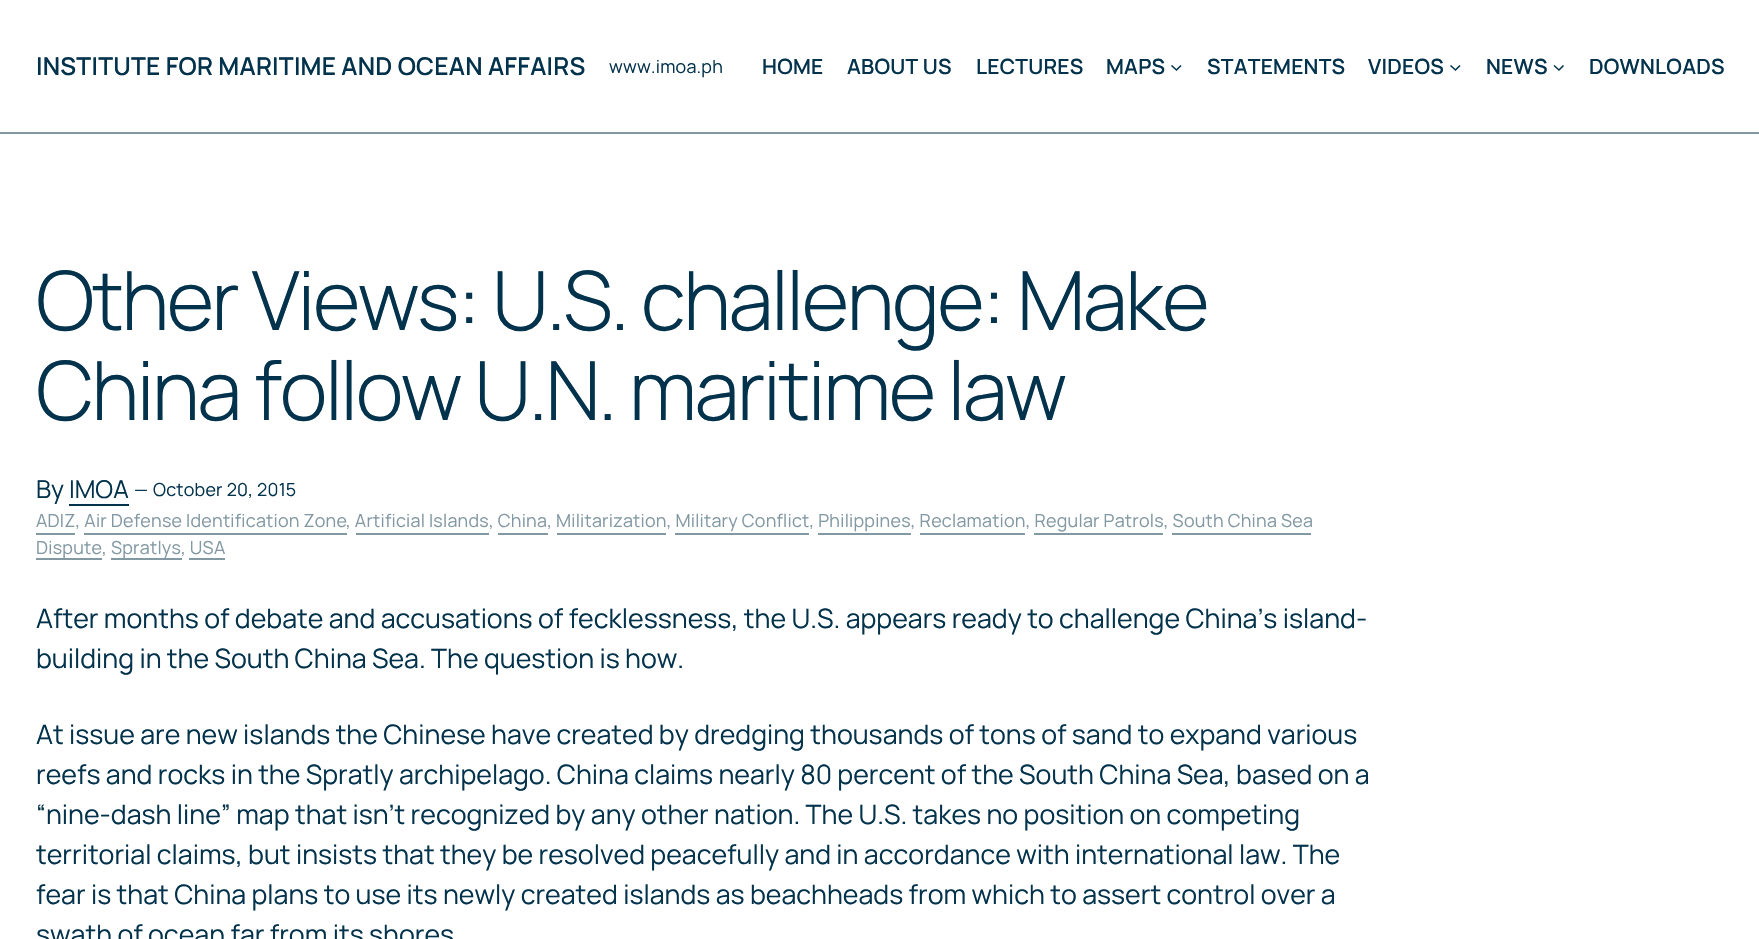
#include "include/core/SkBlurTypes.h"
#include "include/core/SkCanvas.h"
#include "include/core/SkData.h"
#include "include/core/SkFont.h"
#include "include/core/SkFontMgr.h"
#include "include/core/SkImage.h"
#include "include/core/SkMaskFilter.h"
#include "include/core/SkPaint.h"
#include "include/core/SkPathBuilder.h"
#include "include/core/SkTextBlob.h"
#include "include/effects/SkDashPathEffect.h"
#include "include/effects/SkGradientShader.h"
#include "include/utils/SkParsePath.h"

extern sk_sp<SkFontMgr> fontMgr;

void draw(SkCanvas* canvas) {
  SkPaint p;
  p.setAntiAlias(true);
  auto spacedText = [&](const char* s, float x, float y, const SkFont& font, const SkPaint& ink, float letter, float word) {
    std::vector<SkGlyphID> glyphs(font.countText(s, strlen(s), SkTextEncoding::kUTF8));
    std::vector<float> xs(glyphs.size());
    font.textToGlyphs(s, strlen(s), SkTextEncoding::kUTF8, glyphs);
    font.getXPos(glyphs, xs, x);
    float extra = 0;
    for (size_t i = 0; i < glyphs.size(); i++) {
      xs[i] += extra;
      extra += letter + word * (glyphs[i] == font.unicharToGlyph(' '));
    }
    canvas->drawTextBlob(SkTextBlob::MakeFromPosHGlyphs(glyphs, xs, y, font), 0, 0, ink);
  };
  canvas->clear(SK_ColorWHITE);
  p.setColor(SkColorSetRGB(130, 153, 164));
  canvas->drawRect(SkRect::MakeLTRB(0, 132, 1759, 134), p);
  p.setStyle(SkPaint::kStroke_Style);
  p.setStrokeWidth(1.6f);
  p.setColor(SkColorSetRGB(3, 51, 76));
  canvas->drawPath(SkPathBuilder().moveTo(1171.5f, 65.5f).lineTo(1176.5f, 70).lineTo(1181, 65.5f).detach(), p);
  canvas->drawPath(SkPathBuilder().moveTo(1450.5f, 65.5f).lineTo(1455.5f, 70).lineTo(1460, 65.5f).detach(), p);
  canvas->drawPath(SkPathBuilder().moveTo(1554, 65.5f).lineTo(1559, 70).lineTo(1563.5f, 65.5f).detach(), p);
  p.setStyle(SkPaint::kFill_Style);
  canvas->drawRect(SkRect::MakeLTRB(69, 504, 129, 506), p);
  p.setColor(SkColorSetRGB(130, 153, 164));
  canvas->drawRect(SkRect::MakeLTRB(36, 533, 75, 535), p);
  canvas->drawRect(SkRect::MakeLTRB(84, 533, 347, 535), p);
  canvas->drawRect(SkRect::MakeLTRB(356, 533, 489, 535), p);
  canvas->drawRect(SkRect::MakeLTRB(498, 533, 548, 535), p);
  canvas->drawRect(SkRect::MakeLTRB(557, 533, 666, 535), p);
  canvas->drawRect(SkRect::MakeLTRB(675, 533, 809, 535), p);
  canvas->drawRect(SkRect::MakeLTRB(818, 533, 911, 535), p);
  canvas->drawRect(SkRect::MakeLTRB(920, 533, 1025, 535), p);
  canvas->drawRect(SkRect::MakeLTRB(1034, 533, 1163, 535), p);
  canvas->drawRect(SkRect::MakeLTRB(1172, 533, 1311, 535), p);
  canvas->drawRect(SkRect::MakeLTRB(36, 558, 102, 560), p);
  canvas->drawRect(SkRect::MakeLTRB(111, 558, 182, 560), p);
  canvas->drawRect(SkRect::MakeLTRB(189, 558, 225, 560), p);
  SkFont font1(fontMgr->matchFamilyStyle("Manrope", SkFontStyle(600, SkFontStyle::kNormal_Width, SkFontStyle::kUpright_Slant)), 24.55f);
  font1.setSubpixel(true);
  p.setColor(SkColorSetRGB(3, 51, 76));
  spacedText("INSTITUTE FOR MARITIME AND OCEAN AFFAIRS", 36, 75, font1, p, 0.24f, 0);
  SkFont font2(fontMgr->matchFamilyStyle("Manrope", SkFontStyle::Normal()), 17.9f);
  font2.setSubpixel(true);
  spacedText("www.imoa.ph", 609, 73, font2, p, 0.24f, 0);
  SkFont font3(fontMgr->matchFamilyStyle("Manrope", SkFontStyle(600, SkFontStyle::kNormal_Width, SkFontStyle::kUpright_Slant)), 21);
  font3.setSubpixel(true);
  spacedText("HOME", 762, 74, font3, p, 0.24f, 0);
  spacedText("ABOUT US", 847, 74, font3, p, 0.24f, 0);
  spacedText("LECTURES", 976, 74, font3, p, 0.24f, 0);
  spacedText("MAPS", 1106, 74, font3, p, 0.24f, 0);
  spacedText("STATEMENTS", 1207, 74, font3, p, 0.24f, 0);
  spacedText("VIDEOS", 1368, 74, font3, p, 0.24f, 0);
  spacedText("NEWS", 1486, 74, font3, p, 0.24f, 0);
  spacedText("DOWNLOADS", 1589, 74, font3, p, 0.24f, 0);
  SkFont font4(fontMgr->matchFamilyStyle("Manrope", SkFontStyle(300, SkFontStyle::kNormal_Width, SkFontStyle::kUpright_Slant)), 81.7f);
  font4.setSubpixel(true);
  spacedText("Other Views: U.S. challenge: Make", 36, 330, font4, p, -2.4f, 0);
  spacedText("China follow U.N. maritime law", 36, 420, font4, p, -2.4f, 0);
  SkFont font5(fontMgr->matchFamilyStyle("Manrope", SkFontStyle::Normal()), 24.55f);
  font5.setSubpixel(true);
  canvas->drawString("By", 36, 498, font5, p);
  canvas->drawString("IMOA", 69, 498, font5, p);
  canvas->drawString("—", 134, 496, font2, p);
  spacedText("October 20, 2015", 153, 496, font2, p, 0.24f, 0);
  p.setColor(SkColorSetRGB(130, 153, 164));
  spacedText("ADIZ, Air Defense Identification Zone", 36, 527, font2, p, 0.24f, 0);
  spacedText(", Artificial Islands, China, Militarization, Military Conflict, Philippines, Reclamation, Regular Patrols, South China Sea", 346, 527, font2, p, 0.24f, 0);
  spacedText("Dispute", 36, 554, font2, p, 0.24f, 0);
  spacedText(",", 102, 554, font2, p, 0.24f, 0);
  spacedText("Spratlys", 111, 554, font2, p, 0.24f, 0);
  spacedText(", USA", 181, 554, font2, p, 0.24f, 0);
  SkFont font6(fontMgr->matchFamilyStyle("Manrope", SkFontStyle::Normal()), 26.75f);
  font6.setSubpixel(true);
  p.setColor(SkColorSetRGB(3, 51, 76));
  canvas->drawString("After months of debate and accusations of fecklessness, the U.S. appears ready to challenge China’s island-", 36, 628, font6, p);
  canvas->drawString("building in the South China Sea. The question is how.", 36, 668, font6, p);
  canvas->drawString("At issue are new islands the Chinese have created by dredging thousands of tons of sand to expand various", 36, 744, font6, p);
  canvas->drawString("reefs and rocks in the Spratly archipelago. China claims nearly 80 percent of the South China Sea, based on a", 36, 784, font6, p);
  canvas->drawString("“nine-dash line” map that isn’t recognized by any other nation. The U.S. takes no position on competing", 36, 824, font6, p);
  canvas->drawString("territorial claims, but insists that they be resolved peacefully and in accordance with international law. The", 36, 864, font6, p);
  canvas->drawString("fear is that China plans to use its newly created islands as beachheads from which to assert control over a", 36, 904, font6, p);
  canvas->drawString("swath of ocean far from its shores", 36, 944, font6, p);
}
